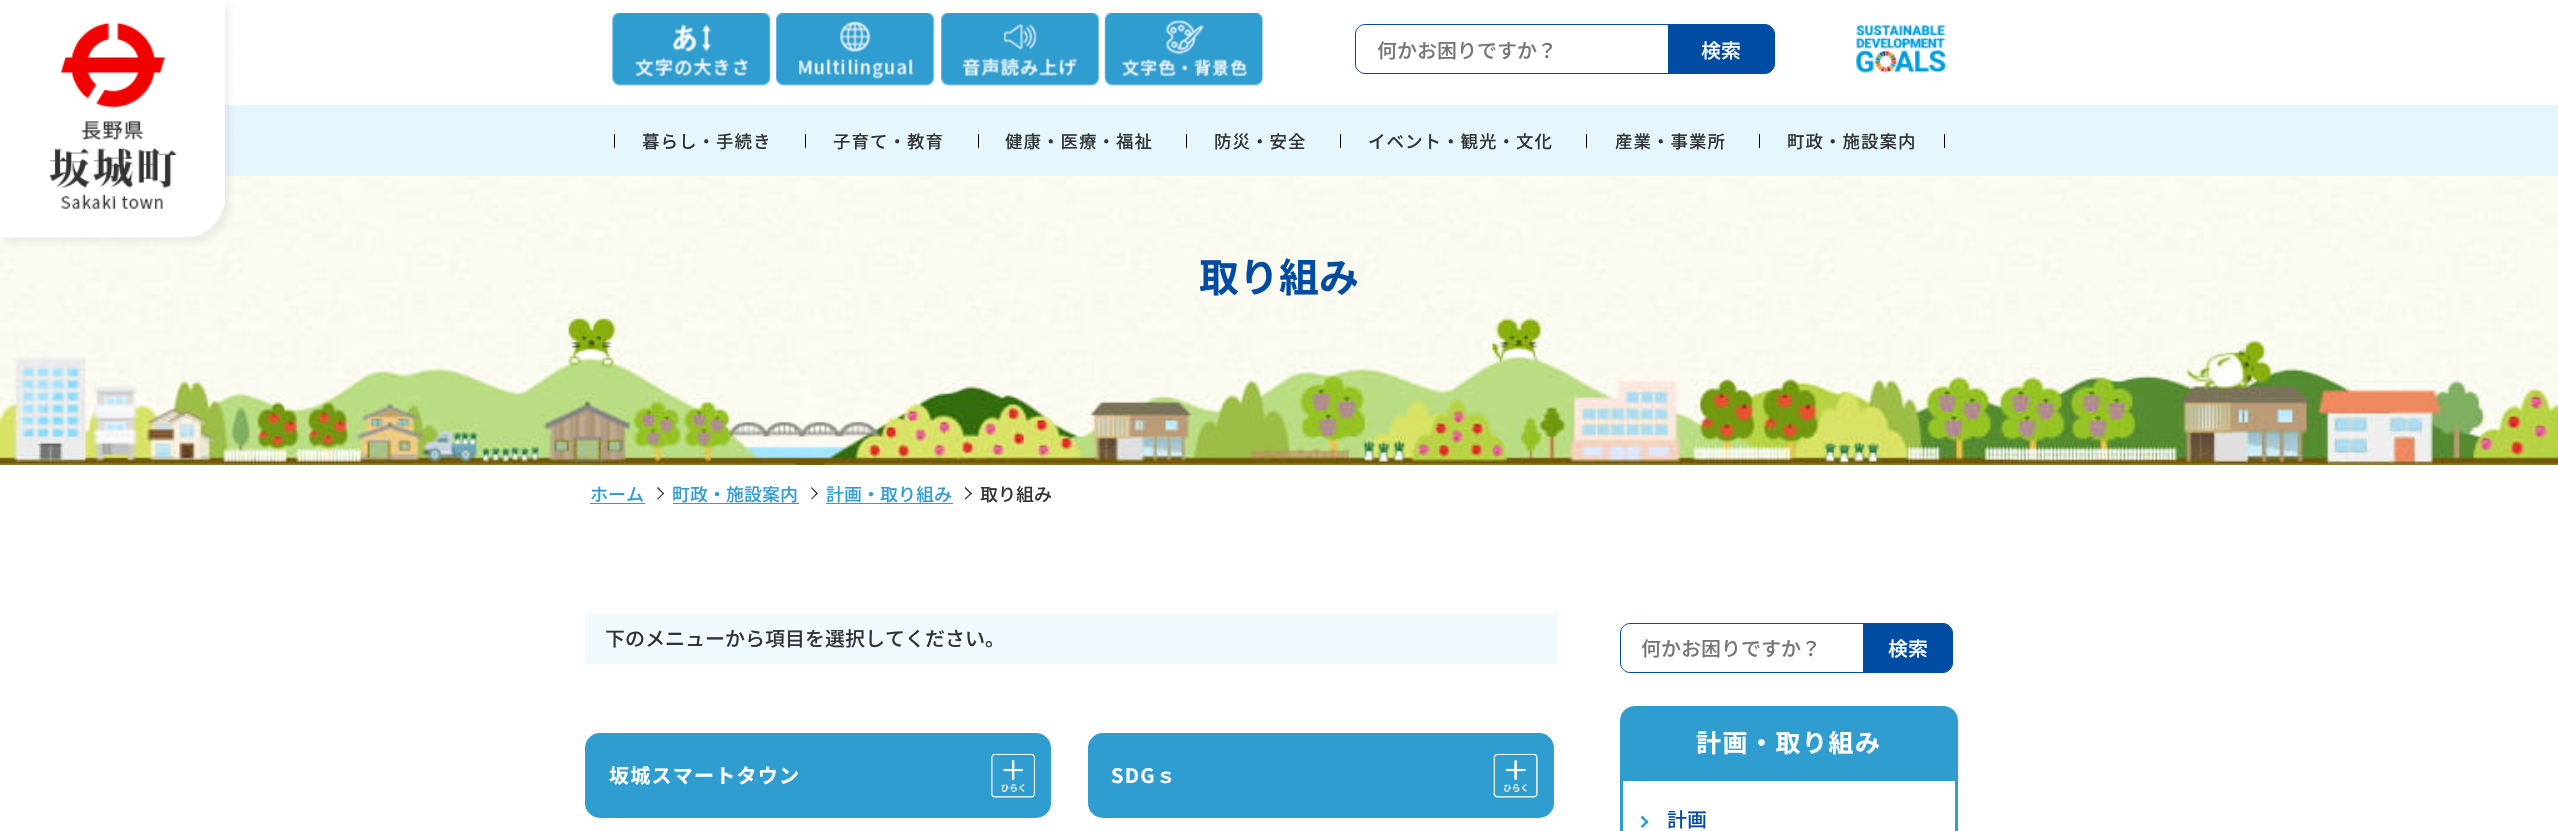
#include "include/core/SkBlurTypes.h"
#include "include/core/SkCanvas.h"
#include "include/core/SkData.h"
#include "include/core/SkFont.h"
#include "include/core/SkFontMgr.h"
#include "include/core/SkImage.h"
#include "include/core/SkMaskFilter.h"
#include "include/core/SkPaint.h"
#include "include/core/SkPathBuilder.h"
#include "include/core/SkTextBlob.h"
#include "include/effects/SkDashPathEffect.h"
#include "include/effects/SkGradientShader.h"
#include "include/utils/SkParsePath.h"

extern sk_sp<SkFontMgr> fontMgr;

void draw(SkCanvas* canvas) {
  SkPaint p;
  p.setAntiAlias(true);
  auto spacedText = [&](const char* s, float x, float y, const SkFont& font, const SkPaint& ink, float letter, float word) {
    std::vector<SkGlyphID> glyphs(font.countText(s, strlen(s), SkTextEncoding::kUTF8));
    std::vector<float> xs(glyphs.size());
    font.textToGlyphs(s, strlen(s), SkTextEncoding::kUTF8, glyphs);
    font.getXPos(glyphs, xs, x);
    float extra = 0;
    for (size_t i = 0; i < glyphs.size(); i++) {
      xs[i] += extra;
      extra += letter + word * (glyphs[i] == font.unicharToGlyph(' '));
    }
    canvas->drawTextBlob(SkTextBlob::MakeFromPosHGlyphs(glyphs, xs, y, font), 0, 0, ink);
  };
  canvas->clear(SK_ColorWHITE);
  p.setColor(SkColorSetRGB(230, 246, 253));
  canvas->drawRect(SkRect::MakeLTRB(49, 105, 2558, 176), p);
  canvas->drawImageRect(SkImages::DeferredFromEncodedData(SkData::MakeFromFileName("images/7.png")), SkRect::MakeLTRB(0, 176, 2558, 465), SkSamplingOptions());
  canvas->drawImageRect(SkImages::DeferredFromEncodedData(SkData::MakeFromFileName("images/1.png")), SkRect::MakeLTRB(0, 2, 234, 246), SkSamplingOptions());
  canvas->drawImageRect(SkImages::DeferredFromEncodedData(SkData::MakeFromFileName("images/2.png")), SkRect::MakeLTRB(612, 13, 771, 86), SkSamplingOptions());
  canvas->drawImageRect(SkImages::DeferredFromEncodedData(SkData::MakeFromFileName("images/3.png")), SkRect::MakeLTRB(776, 13, 935, 86), SkSamplingOptions());
  canvas->drawImageRect(SkImages::DeferredFromEncodedData(SkData::MakeFromFileName("images/4.png")), SkRect::MakeLTRB(941, 13, 1100, 86), SkSamplingOptions());
  canvas->drawImageRect(SkImages::DeferredFromEncodedData(SkData::MakeFromFileName("images/5.png")), SkRect::MakeLTRB(1104, 13, 1263, 86), SkSamplingOptions());
  p.setStyle(SkPaint::kStroke_Style);
  p.setStrokeWidth(1);
  p.setColor(SkColorSetRGB(0, 76, 162));
  canvas->drawPath(SkPathBuilder().moveTo(1365, 24.5f).lineTo(1669.5f, 24.5f).lineTo(1669.5f, 73.5f).lineTo(1365, 73.5f).cubicTo(1360, 73.5f, 1355.5f, 69, 1355.5f, 64).lineTo(1355.5f, 34).cubicTo(1355.5f, 29, 1360, 24.5f, 1365, 24.5f).close().detach(), p);
  p.setStyle(SkPaint::kFill_Style);
  canvas->drawPath(SkPathBuilder().moveTo(1668.5f, 24.5f).lineTo(1765, 24.5f).cubicTo(1770, 24.5f, 1774.5f, 29, 1774.5f, 34).lineTo(1774.5f, 64).cubicTo(1774.5f, 69, 1770, 73.5f, 1765, 73.5f).lineTo(1668.5f, 73.5f).close().detach(), p);
  p.setStyle(SkPaint::kStroke_Style);
  canvas->drawPath(SkPathBuilder().moveTo(1668.5f, 24.5f).lineTo(1765, 24.5f).cubicTo(1770, 24.5f, 1774.5f, 29, 1774.5f, 34).lineTo(1774.5f, 64).cubicTo(1774.5f, 69, 1770, 73.5f, 1765, 73.5f).lineTo(1668.5f, 73.5f).close().detach(), p);
  canvas->drawImageRect(SkImages::DeferredFromEncodedData(SkData::MakeFromFileName("images/6.png")), SkRect::MakeLTRB(1856, 25, 1947, 73), SkSamplingOptions());
  p.setStyle(SkPaint::kFill_Style);
  p.setColor(SK_ColorBLACK);
  canvas->drawRect(SkRect::MakeLTRB(614, 134, 615, 148), p);
  canvas->drawRect(SkRect::MakeLTRB(805, 134, 806, 148), p);
  canvas->drawRect(SkRect::MakeLTRB(978, 134, 979, 148), p);
  canvas->drawRect(SkRect::MakeLTRB(1186, 134, 1187, 148), p);
  canvas->drawRect(SkRect::MakeLTRB(1340, 134, 1341, 148), p);
  canvas->drawRect(SkRect::MakeLTRB(1586, 134, 1587, 148), p);
  canvas->drawRect(SkRect::MakeLTRB(1759, 134, 1760, 148), p);
  canvas->drawRect(SkRect::MakeLTRB(1944, 134, 1945, 148), p);
  p.setColor(SkColorSetRGB(47, 157, 208));
  canvas->drawRect(SkRect::MakeLTRB(590, 503, 645, 504), p);
  p.setColor(SkColorSetRGB(51, 51, 51));
  canvas->drawPath(SkPathBuilder().moveTo(657, 488).lineTo(658, 487).lineTo(664, 493.5f).lineTo(663.5f, 494.5f).close().detach(), p);
  canvas->drawPath(SkPathBuilder().moveTo(657, 499).lineTo(663.5f, 492.5f).lineTo(664, 493.5f).lineTo(658, 499.5f).close().detach(), p);
  p.setColor(SkColorSetRGB(47, 157, 208));
  canvas->drawRect(SkRect::MakeLTRB(673, 503, 799, 504), p);
  p.setColor(SkColorSetRGB(51, 51, 51));
  canvas->drawPath(SkPathBuilder().moveTo(811, 488).lineTo(811.5f, 487).lineTo(818, 493.5f).lineTo(817, 494.5f).close().detach(), p);
  canvas->drawPath(SkPathBuilder().moveTo(811, 499).lineTo(817, 492.5f).lineTo(818, 493.5f).lineTo(811.5f, 499.5f).close().detach(), p);
  p.setColor(SkColorSetRGB(47, 157, 208));
  canvas->drawRect(SkRect::MakeLTRB(826, 503, 953, 504), p);
  p.setColor(SkColorSetRGB(51, 51, 51));
  canvas->drawPath(SkPathBuilder().moveTo(964.5f, 488).lineTo(965.5f, 487).lineTo(972, 493.5f).lineTo(971, 494.5f).close().detach(), p);
  canvas->drawPath(SkPathBuilder().moveTo(964.5f, 499).lineTo(971, 492.5f).lineTo(972, 493.5f).lineTo(965.5f, 499.5f).close().detach(), p);
  p.setColor(SkColorSetRGB(241, 251, 255));
  canvas->drawRect(SkRect::MakeLTRB(585, 613, 1558, 664), p);
  p.setColor(SkColorSetRGB(47, 157, 208));
  canvas->drawRoundRect(SkRect::MakeLTRB(587, 735, 1049, 816), 13, 13, p);
  p.setStyle(SkPaint::kStroke_Style);
  p.setStrokeWidth(4);
  canvas->drawRoundRect(SkRect::MakeLTRB(587, 735, 1049, 816), 13, 13, p);
  canvas->drawImageRect(SkImages::DeferredFromEncodedData(SkData::MakeFromFileName("images/8.png")), SkRect::MakeLTRB(991, 753, 1035, 798), SkSamplingOptions());
  p.setStyle(SkPaint::kFill_Style);
  canvas->drawRoundRect(SkRect::MakeLTRB(1090, 735, 1552, 816), 13, 13, p);
  p.setStyle(SkPaint::kStroke_Style);
  canvas->drawRoundRect(SkRect::MakeLTRB(1090, 735, 1552, 816), 13, 13, p);
  canvas->drawImageRect(SkImages::DeferredFromEncodedData(SkData::MakeFromFileName("images/9.png")), SkRect::MakeLTRB(1493, 753, 1538, 798), SkSamplingOptions());
  p.setStrokeWidth(1);
  p.setColor(SkColorSetRGB(0, 76, 162));
  canvas->drawPath(SkPathBuilder().moveTo(1630, 623.5f).lineTo(1865.5f, 623.5f).lineTo(1865.5f, 672.5f).lineTo(1630, 672.5f).cubicTo(1625, 672.5f, 1620.5f, 668, 1620.5f, 663).lineTo(1620.5f, 633).cubicTo(1620.5f, 628, 1625, 623.5f, 1630, 623.5f).close().detach(), p);
  p.setStyle(SkPaint::kFill_Style);
  canvas->drawPath(SkPathBuilder().moveTo(1863.5f, 623.5f).lineTo(1943, 623.5f).cubicTo(1948, 623.5f, 1952.5f, 628, 1952.5f, 633).lineTo(1952.5f, 663).cubicTo(1952.5f, 668, 1948, 672.5f, 1943, 672.5f).lineTo(1863.5f, 672.5f).close().detach(), p);
  p.setStyle(SkPaint::kStroke_Style);
  canvas->drawPath(SkPathBuilder().moveTo(1863.5f, 623.5f).lineTo(1943, 623.5f).cubicTo(1948, 623.5f, 1952.5f, 628, 1952.5f, 633).lineTo(1952.5f, 663).cubicTo(1952.5f, 668, 1948, 672.5f, 1943, 672.5f).lineTo(1863.5f, 672.5f).close().detach(), p);
  p.setStyle(SkPaint::kFill_Style);
  p.setColor(SkColorSetRGB(47, 157, 208));
  canvas->drawPath(SkPathBuilder().moveTo(1635, 706).lineTo(1943, 706).cubicTo(1951.5f, 706, 1958, 712.5f, 1958, 721).lineTo(1958, 779).lineTo(1620, 779).lineTo(1620, 721).cubicTo(1620, 712.5f, 1626.5f, 706, 1635, 706).close().detach(), p);
  p.setStyle(SkPaint::kStroke_Style);
  p.setStrokeWidth(3);
  canvas->drawRect(SkRect::MakeLTRB(1621.5f, 780.5f, 1956.5f, 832.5f), p);
  p.setStyle(SkPaint::kFill_Style);
  p.setColor(SK_ColorWHITE);
  canvas->drawRect(SkRect::MakeLTRB(1623, 781, 1955, 782), p);
  p.setColor(SkColorSetRGB(47, 157, 208));
  canvas->drawPath(SkPathBuilder().moveTo(1642.5f, 815.5f).lineTo(1648.5f, 822).lineTo(1647, 823.5f).lineTo(1640.5f, 817.5f).close().detach(), p);
  canvas->drawPath(SkPathBuilder().moveTo(1647, 820).lineTo(1648.5f, 822).lineTo(1642.5f, 828).lineTo(1640.5f, 826.5f).close().detach(), p);
  SkFont font1(fontMgr->matchFamilyStyle("Noto Sans JP", SkFontStyle(500, SkFontStyle::kNormal_Width, SkFontStyle::kUpright_Slant)), 20);
  font1.setSubpixel(true);
  p.setColor(SkColorSetRGB(117, 117, 117));
  canvas->drawString("何かお困りですか？", 1377, 58, font1, p);
  p.setColor(SK_ColorWHITE);
  canvas->drawString("検索", 1701, 58, font1, p);
  SkFont font2(fontMgr->matchFamilyStyle("Noto Sans JP", SkFontStyle(500, SkFontStyle::kNormal_Width, SkFontStyle::kUpright_Slant)), 17.5f);
  font2.setSubpixel(true);
  p.setColor(SkColorSetRGB(51, 51, 51));
  spacedText("暮らし・手続き", 642, 148, font2, p, 1, 0);
  spacedText("子育て・教育", 833, 148, font2, p, 1, 0);
  spacedText("健康・医療・福祉", 1005, 148, font2, p, 1, 0);
  spacedText("防災・安全", 1214, 148, font2, p, 1, 0);
  spacedText("イベント・観光・文化", 1368, 148, font2, p, 1, 0);
  spacedText("産業・事業所", 1615, 148, font2, p, 1, 0);
  spacedText("町政・施設案内", 1787, 148, font2, p, 1, 0);
  SkFont font3(fontMgr->matchFamilyStyle("Noto Sans JP", SkFontStyle::Bold()), 40);
  font3.setSubpixel(true);
  p.setColor(SkColorSetRGB(0, 76, 162));
  canvas->drawString("取り組み", 1199, 292, font3, p);
  SkFont font4(fontMgr->matchFamilyStyle("Noto Sans JP", SkFontStyle(500, SkFontStyle::kNormal_Width, SkFontStyle::kUpright_Slant)), 18);
  font4.setSubpixel(true);
  p.setColor(SkColorSetRGB(47, 157, 208));
  canvas->drawString("ホーム", 590, 501, font4, p);
  canvas->drawString("町政・施設案内", 672, 501, font4, p);
  canvas->drawString("計画・取り組み", 826, 501, font4, p);
  p.setColor(SkColorSetRGB(51, 51, 51));
  canvas->drawString("取り組み", 980, 501, font4, p);
  canvas->drawString("下のメニューから項目を選択してください。", 605, 646, font1, p);
  SkFont font5(fontMgr->matchFamilyStyle("Noto Sans JP", SkFontStyle::Bold()), 20);
  font5.setSubpixel(true);
  p.setColor(SK_ColorWHITE);
  spacedText("坂城スマートタウン", 609, 783, font5, p, 1.25f, 0);
  spacedText("SDGｓ", 1111, 783, font5, p, 1.25f, 0);
  p.setColor(SkColorSetRGB(117, 117, 117));
  canvas->drawString("何かお困りですか？", 1641, 656, font1, p);
  p.setColor(SK_ColorWHITE);
  canvas->drawString("検索", 1888, 656, font1, p);
  SkFont font6(fontMgr->matchFamilyStyle("Noto Sans JP", SkFontStyle::Bold()), 25);
  font6.setSubpixel(true);
  spacedText("計画・取り組み", 1696, 752, font6, p, 1.5f, 0);
  p.setColor(SkColorSetRGB(0, 76, 162));
  canvas->drawString("計画", 1667, 827, font1, p);
}
